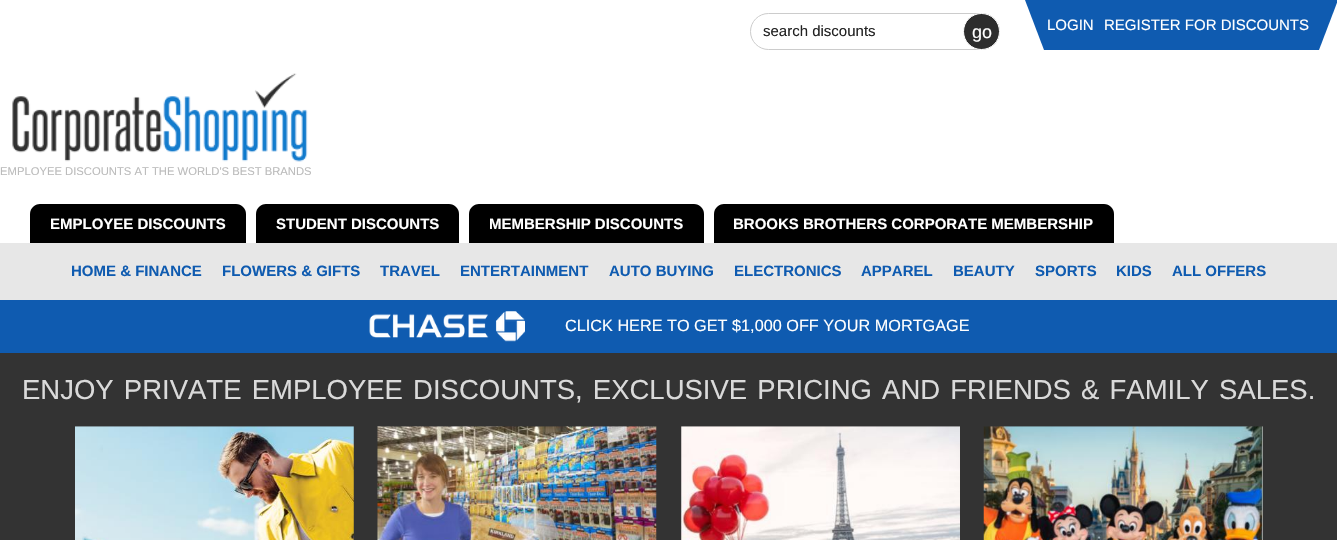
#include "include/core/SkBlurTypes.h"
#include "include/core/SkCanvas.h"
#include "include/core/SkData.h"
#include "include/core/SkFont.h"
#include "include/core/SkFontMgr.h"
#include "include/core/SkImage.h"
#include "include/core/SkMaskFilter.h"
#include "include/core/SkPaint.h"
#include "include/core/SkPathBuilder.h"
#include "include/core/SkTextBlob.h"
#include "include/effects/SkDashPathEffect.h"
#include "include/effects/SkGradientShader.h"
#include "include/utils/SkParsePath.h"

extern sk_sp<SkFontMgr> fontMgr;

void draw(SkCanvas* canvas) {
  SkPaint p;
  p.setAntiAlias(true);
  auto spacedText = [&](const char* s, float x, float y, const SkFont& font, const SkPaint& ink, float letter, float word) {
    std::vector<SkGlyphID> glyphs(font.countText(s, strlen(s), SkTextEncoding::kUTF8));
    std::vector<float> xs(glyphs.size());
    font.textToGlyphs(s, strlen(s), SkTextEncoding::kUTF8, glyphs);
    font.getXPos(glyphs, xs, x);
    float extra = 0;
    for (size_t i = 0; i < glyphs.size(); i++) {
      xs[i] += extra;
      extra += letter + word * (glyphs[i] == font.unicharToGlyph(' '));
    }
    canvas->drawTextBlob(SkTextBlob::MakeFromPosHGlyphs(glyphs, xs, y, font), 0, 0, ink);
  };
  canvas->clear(SK_ColorWHITE);
  p.setStyle(SkPaint::kStroke_Style);
  p.setStrokeWidth(1);
  p.setColor(SkColorSetRGB(204, 204, 204));
  canvas->drawRoundRect(SkRect::MakeLTRB(750.5f, 13.5f, 999.5f, 49.5f), 18, 18, p);
  p.setStyle(SkPaint::kFill_Style);
  p.setColor(SkColorSetRGB(45, 45, 45));
  canvas->drawCircle(981.5f, 31.5f, 18, p);
  p.setStyle(SkPaint::kStroke_Style);
  p.setColor(SK_ColorWHITE);
  canvas->drawCircle(981.5f, 31.5f, 18, p);
  p.setStyle(SkPaint::kFill_Style);
  p.setColor(SkColorSetRGB(15, 91, 176));
  canvas->drawPath(SkPathBuilder().moveTo(1025, 0).lineTo(1044, 50).lineTo(1319, 50).lineTo(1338, 0).close().detach(), p);
  canvas->drawImageRect(SkImages::DeferredFromEncodedData(SkData::MakeFromFileName("images/1.png")), SkRect::MakeLTRB(12, 73, 308, 162), SkSamplingOptions());
  p.setColor(SK_ColorBLACK);
  canvas->drawPath(SkPathBuilder().moveTo(40, 204).lineTo(236, 204).cubicTo(241.5f, 204, 246, 208.5f, 246, 214).lineTo(246, 243).lineTo(30, 243).lineTo(30, 214).cubicTo(30, 208.5f, 34.5f, 204, 40, 204).close().detach(), p);
  canvas->drawPath(SkPathBuilder().moveTo(266, 204).lineTo(449, 204).cubicTo(454.5f, 204, 459, 208.5f, 459, 214).lineTo(459, 243).lineTo(256, 243).lineTo(256, 214).cubicTo(256, 208.5f, 260.5f, 204, 266, 204).close().detach(), p);
  canvas->drawPath(SkPathBuilder().moveTo(479, 204).lineTo(694, 204).cubicTo(699.5f, 204, 704, 208.5f, 704, 214).lineTo(704, 243).lineTo(469, 243).lineTo(469, 214).cubicTo(469, 208.5f, 473.5f, 204, 479, 204).close().detach(), p);
  canvas->drawPath(SkPathBuilder().moveTo(724, 204).lineTo(1104, 204).cubicTo(1109.5f, 204, 1114, 208.5f, 1114, 214).lineTo(1114, 243).lineTo(714, 243).lineTo(714, 214).cubicTo(714, 208.5f, 718.5f, 204, 724, 204).close().detach(), p);
  p.setColor(SkColorSetRGB(231, 231, 231));
  canvas->drawRect(SkRect::MakeLTRB(0, 243, 1337, 300), p);
  p.setColor(SkColorSetRGB(15, 91, 176));
  canvas->drawRect(SkRect::MakeLTRB(0, 300, 1337, 353), p);
  canvas->drawImageRect(SkImages::DeferredFromEncodedData(SkData::MakeFromFileName("images/2.png")), SkRect::MakeLTRB(369, 311, 525, 342), SkSamplingOptions());
  p.setColor(SkColorSetRGB(51, 51, 51));
  canvas->drawRect(SkRect::MakeLTRB(0, 353, 1337, 540), p);
  canvas->drawImageRect(SkImages::DeferredFromEncodedData(SkData::MakeFromFileName("images/3.png")), SkRect::MakeLTRB(75, 426, 354, 540), SkSamplingOptions());
  canvas->drawImageRect(SkImages::DeferredFromEncodedData(SkData::MakeFromFileName("images/4.png")), SkRect::MakeLTRB(377, 426, 657, 540), SkSamplingOptions());
  canvas->drawImageRect(SkImages::DeferredFromEncodedData(SkData::MakeFromFileName("images/5.png")), SkRect::MakeLTRB(681, 426, 960, 540), SkSamplingOptions());
  canvas->drawImageRect(SkImages::DeferredFromEncodedData(SkData::MakeFromFileName("images/6.png")), SkRect::MakeLTRB(983, 426, 1263, 540), SkSamplingOptions());
  SkFont font1(fontMgr->matchFamilyStyle("Liberation Sans", SkFontStyle::Normal()), 15);
  font1.setSubpixel(true);
  p.setColor(SkColorSetRGB(34, 34, 34));
  canvas->drawString("search discounts", 763, 36, font1, p);
  SkFont font2(fontMgr->matchFamilyStyle("Liberation Sans", SkFontStyle::Normal()), 18);
  font2.setSubpixel(true);
  p.setColor(SK_ColorWHITE);
  canvas->drawString("go", 972, 38, font2, p);
  canvas->drawString("LOGIN", 1047, 30, font1, p);
  canvas->drawString("REGISTER FOR DISCOUNTS", 1104, 30, font1, p);
  SkFont font3(fontMgr->matchFamilyStyle("Liberation Sans", SkFontStyle::Normal()), 11.25f);
  font3.setSubpixel(true);
  p.setColor(SkColorSetRGB(187, 187, 187));
  canvas->drawString("EMPLOYEE DISCOUNTS AT THE WORLD'S BEST BRANDS", 0, 175, font3, p);
  SkFont font4(fontMgr->matchFamilyStyle("Liberation Sans", SkFontStyle::Bold()), 15);
  font4.setSubpixel(true);
  p.setColor(SK_ColorWHITE);
  canvas->drawString("EMPLOYEE DISCOUNTS", 50, 229, font4, p);
  canvas->drawString("STUDENT DISCOUNTS", 276, 229, font4, p);
  canvas->drawString("MEMBERSHIP DISCOUNTS", 489, 229, font4, p);
  canvas->drawString("BROOKS BROTHERS CORPORATE MEMBERSHIP", 733, 229, font4, p);
  p.setColor(SkColorSetRGB(15, 91, 176));
  canvas->drawString("HOME & FINANCE", 71, 276, font4, p);
  canvas->drawString("FLOWERS & GIFTS", 222, 276, font4, p);
  canvas->drawString("TRAVEL", 380, 276, font4, p);
  canvas->drawString("ENTERTAINMENT", 460, 276, font4, p);
  canvas->drawString("AUTO BUYING", 609, 276, font4, p);
  canvas->drawString("ELECTRONICS", 734, 276, font4, p);
  canvas->drawString("APPAREL", 861, 276, font4, p);
  canvas->drawString("BEAUTY", 953, 276, font4, p);
  canvas->drawString("SPORTS", 1035, 276, font4, p);
  canvas->drawString("KIDS", 1116, 276, font4, p);
  canvas->drawString("ALL OFFERS", 1172, 276, font4, p);
  SkFont font5(fontMgr->matchFamilyStyle("Liberation Sans", SkFontStyle::Normal()), 16.25f);
  font5.setSubpixel(true);
  p.setColor(SK_ColorWHITE);
  canvas->drawString("CLICK HERE TO GET $1,000 OFF YOUR MORTGAGE", 565, 331, font5, p);
  SkFont font6(fontMgr->matchFamilyStyle("Liberation Sans", SkFontStyle::Normal()), 27.5f);
  font6.setSubpixel(true);
  p.setColor(SkColorSetRGB(218, 218, 218));
  spacedText("ENJOY PRIVATE EMPLOYEE DISCOUNTS, EXCLUSIVE PRICING AND FRIENDS & FAMILY SALES.", 22, 399, font6, p, 0, 2.5f);
}
